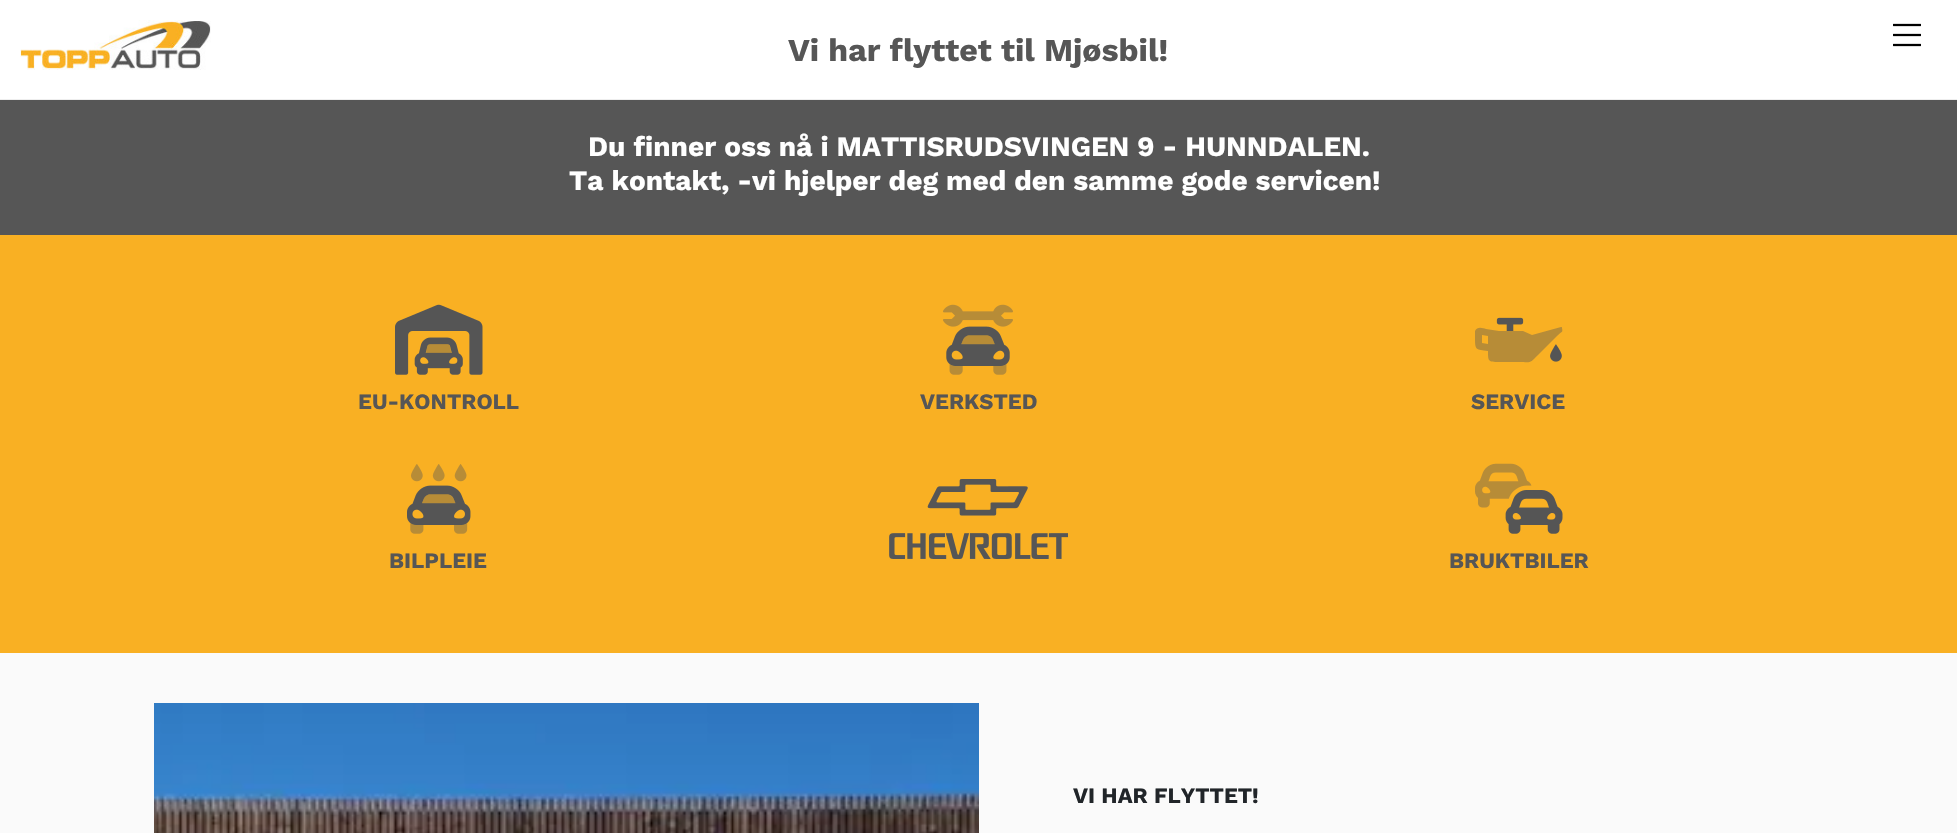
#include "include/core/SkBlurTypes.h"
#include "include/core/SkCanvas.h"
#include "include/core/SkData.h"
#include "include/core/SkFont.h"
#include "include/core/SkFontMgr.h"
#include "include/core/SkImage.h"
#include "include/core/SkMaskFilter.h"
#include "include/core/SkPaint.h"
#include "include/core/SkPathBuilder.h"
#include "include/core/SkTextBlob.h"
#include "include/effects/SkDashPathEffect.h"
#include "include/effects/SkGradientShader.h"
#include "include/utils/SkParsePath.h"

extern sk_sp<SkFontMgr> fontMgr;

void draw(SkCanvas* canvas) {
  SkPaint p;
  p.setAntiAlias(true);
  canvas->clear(SkColorSetRGB(250, 250, 250));
  p.setColor(SK_ColorWHITE);
  canvas->drawRect(SkRect::MakeLTRB(0, 0, 1957, 99), p);
  p.setColor(SkColorSetRGB(238, 238, 238));
  canvas->drawRect(SkRect::MakeLTRB(0, 99, 1957, 100), p);
  canvas->drawImageRect(SkImages::DeferredFromEncodedData(SkData::MakeFromFileName("images/1.png")), SkRect::MakeLTRB(20, 20, 211, 70), SkSamplingOptions());
  p.setColor(SkColorSetRGB(86, 86, 86));
  canvas->drawRect(SkRect::MakeLTRB(0, 100, 1957, 235), p);
  p.setColor(SkColorSetRGB(249, 176, 35));
  canvas->drawRect(SkRect::MakeLTRB(0, 235, 1957, 653), p);
  canvas->drawImageRect(SkImages::DeferredFromEncodedData(SkData::MakeFromFileName("images/2.png")), SkRect::MakeLTRB(395, 304, 483, 375), SkSamplingOptions());
  p.setColor(SkColorSetARGB(102, 85, 85, 85));
  canvas->drawPath(SkPathBuilder().moveTo(451.5f, 353).lineTo(426, 353).cubicTo(428.5f, 342, 427, 344, 439, 344).cubicTo(450.5f, 344, 449, 342, 451.5f, 353).close().detach(), p);
  canvas->drawImageRect(SkImages::DeferredFromEncodedData(SkData::MakeFromFileName("images/4.png")), SkRect::MakeLTRB(946, 326, 1010, 366), SkSamplingOptions());
  canvas->drawImageRect(SkImages::DeferredFromEncodedData(SkData::MakeFromFileName("images/3.png")), SkRect::MakeLTRB(943, 304, 1013, 375), SkSamplingOptions());
  canvas->drawImageRect(SkImages::DeferredFromEncodedData(SkData::MakeFromFileName("images/5.png")), SkRect::MakeLTRB(1496, 317, 1562, 362), SkSamplingOptions());
  p.setColor(SkColorSetRGB(183, 140, 55));
  canvas->drawPath(SkPathBuilder().moveTo(1561, 327).cubicTo(1562, 327, 1562, 327, 1562, 328).cubicTo(1563, 333, 1562, 331, 1557, 336).lineTo(1538, 355).cubicTo(1529, 364, 1532, 362, 1518, 362).lineTo(1499, 362).cubicTo(1488, 362, 1488, 361, 1488, 351).cubicTo(1476, 349, 1475, 351, 1475, 338).lineTo(1475, 331).cubicTo(1477, 326, 1483, 328, 1486, 329).lineTo(1499, 331).lineTo(1523, 331).lineTo(1532, 335).close().moveTo(1488, 344).lineTo(1488, 336).lineTo(1482, 335).lineTo(1482, 343).close().detach(), p);
  canvas->drawImageRect(SkImages::DeferredFromEncodedData(SkData::MakeFromFileName("images/6.png")), SkRect::MakeLTRB(889, 479, 1068, 559), SkSamplingOptions());
  canvas->drawImageRect(SkImages::DeferredFromEncodedData(SkData::MakeFromFileName("images/8.png")), SkRect::MakeLTRB(407, 485, 471, 525), SkSamplingOptions());
  canvas->drawImageRect(SkImages::DeferredFromEncodedData(SkData::MakeFromFileName("images/7.png")), SkRect::MakeLTRB(410, 464, 468, 534), SkSamplingOptions());
  canvas->drawImageRect(SkImages::DeferredFromEncodedData(SkData::MakeFromFileName("images/10.png")), SkRect::MakeLTRB(1505, 490, 1563, 534), SkSamplingOptions());
  canvas->drawImageRect(SkImages::DeferredFromEncodedData(SkData::MakeFromFileName("images/9.png")), SkRect::MakeLTRB(1475, 463, 1532, 508), SkSamplingOptions());
  canvas->drawImageRect(SkImages::DeferredFromEncodedData(SkData::MakeFromFileName("images/11.png")), SkRect::MakeLTRB(154, 703, 979, 833), SkSamplingOptions());
  canvas->drawImageRect(SkImages::DeferredFromEncodedData(SkData::MakeFromFileName("images/12.png")), SkRect::MakeLTRB(1893, 23, 1921, 47), SkSamplingOptions());
  SkFont font1(fontMgr->matchFamilyStyle("Work Sans", SkFontStyle::Bold()), 32);
  font1.setSubpixel(true);
  p.setColor(SkColorSetRGB(86, 86, 86));
  canvas->drawString("Vi har flyttet til Mjøsbil!", 788, 61, font1, p);
  SkFont font2(fontMgr->matchFamilyStyle("Work Sans", SkFontStyle::Bold()), 28);
  font2.setSubpixel(true);
  p.setColor(SK_ColorWHITE);
  canvas->drawString("Du finner oss nå i MATTISRUDSVINGEN 9 - HUNNDALEN.", 588, 156, font2, p);
  canvas->drawString("Ta kontakt, -vi hjelper deg med den samme gode servicen!", 569, 190, font2, p);
  SkFont font3(fontMgr->matchFamilyStyle("Work Sans", SkFontStyle::Bold()), 22);
  font3.setSubpixel(true);
  p.setColor(SkColorSetRGB(86, 86, 86));
  canvas->drawString("EU-KONTROLL", 358, 409, font3, p);
  canvas->drawString("VERKSTED", 920, 409, font3, p);
  canvas->drawString("SERVICE", 1471, 409, font3, p);
  canvas->drawString("BILPLEIE", 389, 568, font3, p);
  canvas->drawString("BRUKTBILER", 1449, 568, font3, p);
  p.setColor(SkColorSetRGB(33, 37, 41));
  canvas->drawString("VI HAR FLYTTET!", 1073, 803, font3, p);
}
